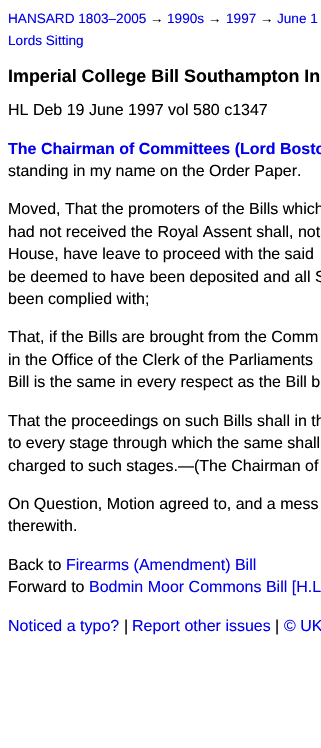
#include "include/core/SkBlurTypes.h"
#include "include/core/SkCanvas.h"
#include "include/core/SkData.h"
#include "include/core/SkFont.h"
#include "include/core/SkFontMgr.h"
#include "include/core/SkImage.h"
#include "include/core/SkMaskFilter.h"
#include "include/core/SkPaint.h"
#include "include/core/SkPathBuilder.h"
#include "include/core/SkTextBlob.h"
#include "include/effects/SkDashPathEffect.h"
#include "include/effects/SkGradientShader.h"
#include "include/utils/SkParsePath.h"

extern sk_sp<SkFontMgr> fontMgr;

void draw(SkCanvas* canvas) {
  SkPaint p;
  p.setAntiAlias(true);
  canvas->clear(SK_ColorWHITE);
  SkFont font1(fontMgr->matchFamilyStyle("Liberation Sans", SkFontStyle::Normal()), 13.6f);
  font1.setSubpixel(true);
  p.setColor(SkColorSetRGB(0, 0, 238));
  canvas->drawString("HANSARD 1803–2005", 8, 23, font1, p);
  p.setColor(SK_ColorBLACK);
  canvas->drawString("→", 150, 23, font1, p);
  p.setColor(SkColorSetRGB(0, 0, 238));
  canvas->drawString("1990s", 167, 23, font1, p);
  p.setColor(SK_ColorBLACK);
  canvas->drawString("→", 208, 23, font1, p);
  p.setColor(SkColorSetRGB(0, 0, 238));
  canvas->drawString("1997", 226, 23, font1, p);
  p.setColor(SK_ColorBLACK);
  canvas->drawString("→", 260, 23, font1, p);
  p.setColor(SkColorSetRGB(0, 0, 238));
  canvas->drawString("June 1", 277, 23, font1, p);
  canvas->drawString("Lords Sitting", 8, 45, font1, p);
  SkFont font2(fontMgr->matchFamilyStyle("Liberation Sans", SkFontStyle::Bold()), 17.9f);
  font2.setSubpixel(true);
  p.setColor(SK_ColorBLACK);
  canvas->drawString("Imperial College Bill Southampton In", 8, 82, font2, p);
  SkFont font3(fontMgr->matchFamilyStyle("Liberation Sans", SkFontStyle::Normal()), 16);
  font3.setSubpixel(true);
  canvas->drawString("HL Deb 19 June 1997 vol 580 c1347", 8, 115, font3, p);
  SkFont font4(fontMgr->matchFamilyStyle("Liberation Sans", SkFontStyle::Bold()), 16);
  font4.setSubpixel(true);
  p.setColor(SkColorSetRGB(0, 0, 238));
  canvas->drawString("The Chairman of Committees (Lord Bosto", 8, 154, font4, p);
  p.setColor(SK_ColorBLACK);
  canvas->drawString("standing in my name on the Order Paper.", 8, 176, font3, p);
  canvas->drawString("Moved, That the promoters of the Bills which", 8, 214, font3, p);
  canvas->drawString("had not received the Royal Assent shall, not", 8, 237, font3, p);
  canvas->drawString("House, have leave to proceed with the said", 8, 259, font3, p);
  canvas->drawString("be deemed to have been deposited and all S", 8, 282, font3, p);
  canvas->drawString("been complied with;", 8, 304, font3, p);
  canvas->drawString("That, if the Bills are brought from the Comm", 8, 342, font3, p);
  canvas->drawString("in the Office of the Clerk of the Parliaments", 8, 365, font3, p);
  canvas->drawString("Bill is the same in every respect as the Bill b", 8, 387, font3, p);
  canvas->drawString("That the proceedings on such Bills shall in th", 8, 426, font3, p);
  canvas->drawString("to every stage through which the same shall", 8, 448, font3, p);
  canvas->drawString("charged to such stages.—(The Chairman of", 8, 471, font3, p);
  canvas->drawString("On Question, Motion agreed to, and a mess", 8, 509, font3, p);
  canvas->drawString("therewith.", 8, 531, font3, p);
  canvas->drawString("Back to", 8, 570, font3, p);
  p.setColor(SkColorSetRGB(0, 0, 238));
  canvas->drawString("Firearms (Amendment) Bill", 66, 570, font3, p);
  p.setColor(SK_ColorBLACK);
  canvas->drawString("Forward to", 8, 592, font3, p);
  p.setColor(SkColorSetRGB(0, 0, 238));
  canvas->drawString("Bodmin Moor Commons Bill [H.L", 89, 592, font3, p);
  canvas->drawString("Noticed a typo?", 8, 631, font3, p);
  p.setColor(SK_ColorBLACK);
  canvas->drawString("|", 124, 631, font3, p);
  p.setColor(SkColorSetRGB(0, 0, 238));
  canvas->drawString("Report other issues", 132, 631, font3, p);
  p.setColor(SK_ColorBLACK);
  canvas->drawString("|", 275, 631, font3, p);
  p.setColor(SkColorSetRGB(0, 0, 238));
  canvas->drawString("© UK", 284, 631, font3, p);
}
